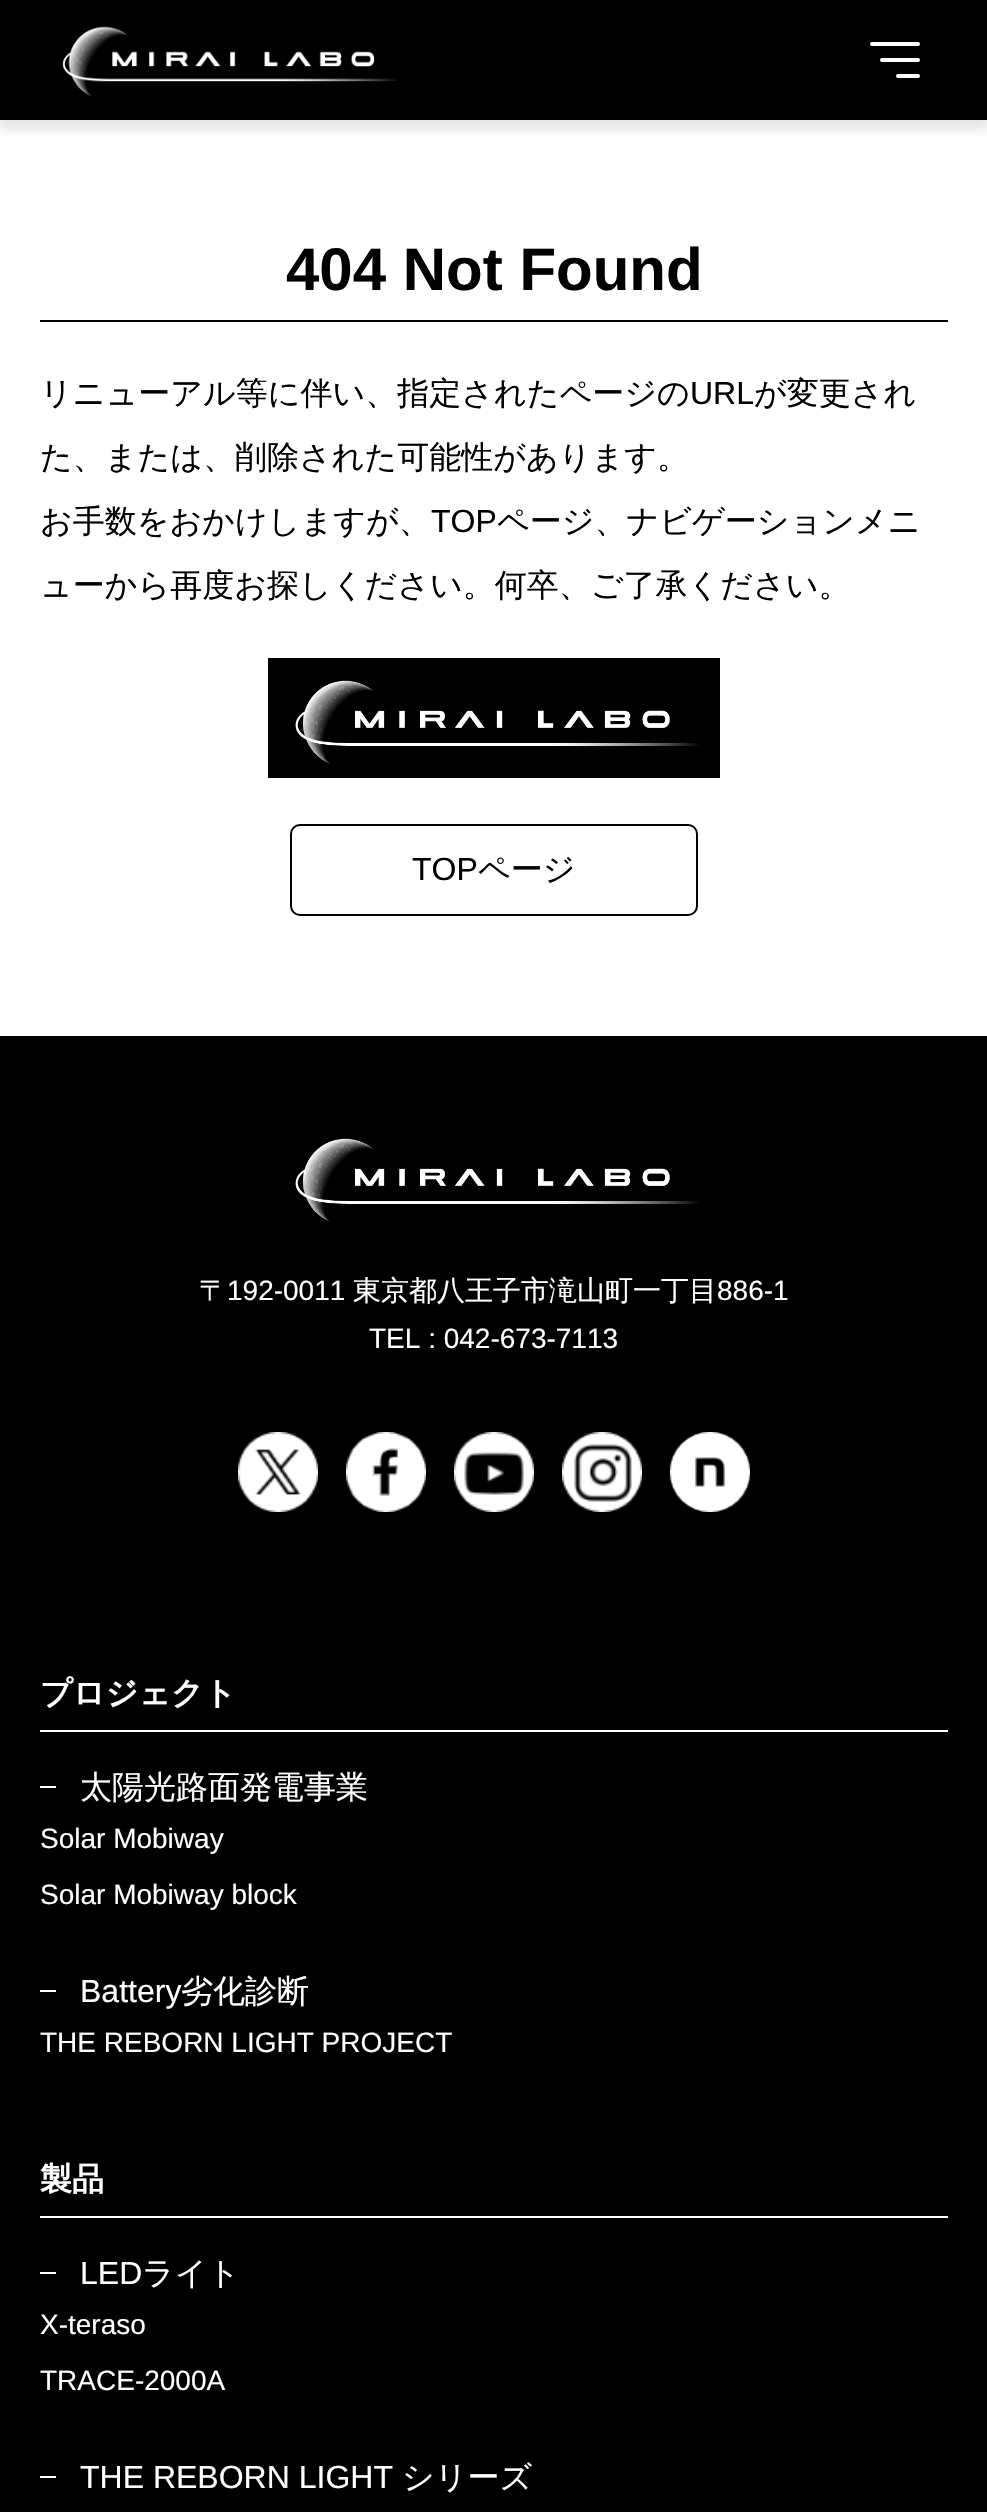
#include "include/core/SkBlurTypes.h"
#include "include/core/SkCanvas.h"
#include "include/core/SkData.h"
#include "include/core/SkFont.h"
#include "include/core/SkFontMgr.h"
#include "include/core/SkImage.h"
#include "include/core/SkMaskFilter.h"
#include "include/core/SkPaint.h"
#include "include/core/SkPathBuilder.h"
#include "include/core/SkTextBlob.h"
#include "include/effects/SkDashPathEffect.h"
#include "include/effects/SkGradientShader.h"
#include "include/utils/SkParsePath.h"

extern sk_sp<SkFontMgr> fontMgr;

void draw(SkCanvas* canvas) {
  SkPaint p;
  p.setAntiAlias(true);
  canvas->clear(SK_ColorWHITE);
  p.setColor(SkColorSetARGB(26, 0, 0, 0));
  p.setMaskFilter(SkMaskFilter::MakeBlur(kNormal_SkBlurStyle, 5));
  canvas->drawRect(SkRect::MakeLTRB(0, 10, 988, 130), p);
  p.setMaskFilter(nullptr);
  p.setColor(SK_ColorBLACK);
  canvas->drawRect(SkRect::MakeLTRB(0, 0, 987, 120), p);
  canvas->drawImageRect(SkImages::DeferredFromEncodedData(SkData::MakeFromFileName("images/1.png")), SkRect::MakeLTRB(62, 26, 398, 96), SkSamplingOptions());
  p.setColor(SK_ColorWHITE);
  canvas->drawRoundRect(SkRect::MakeLTRB(870, 42, 920, 46), 2, 2, p);
  canvas->drawRoundRect(SkRect::MakeLTRB(880, 58, 920, 62), 2, 2, p);
  canvas->drawRoundRect(SkRect::MakeLTRB(896, 74, 920, 78), 2, 2, p);
  p.setColor(SK_ColorBLACK);
  canvas->drawRect(SkRect::MakeLTRB(40, 320, 948, 322), p);
  canvas->drawRect(SkRect::MakeLTRB(268, 658, 720, 778), p);
  canvas->drawImageRect(SkImages::DeferredFromEncodedData(SkData::MakeFromFileName("images/2.png")), SkRect::MakeLTRB(295, 680, 699, 764), SkSamplingOptions());
  p.setStyle(SkPaint::kStroke_Style);
  p.setStrokeWidth(2);
  canvas->drawRoundRect(SkRect::MakeLTRB(291, 825, 697, 915), 9, 9, p);
  p.setStyle(SkPaint::kFill_Style);
  canvas->drawRect(SkRect::MakeLTRB(0, 1036, 987, 2512), p);
  canvas->drawImageRect(SkImages::DeferredFromEncodedData(SkData::MakeFromFileName("images/3.png")), SkRect::MakeLTRB(295, 1138, 699, 1222), SkSamplingOptions());
  canvas->drawImageRect(SkImages::DeferredFromEncodedData(SkData::MakeFromFileName("images/4.png")), SkRect::MakeLTRB(238, 1432, 318, 1512), SkSamplingOptions());
  canvas->drawImageRect(SkImages::DeferredFromEncodedData(SkData::MakeFromFileName("images/5.png")), SkRect::MakeLTRB(346, 1432, 426, 1512), SkSamplingOptions());
  canvas->drawImageRect(SkImages::DeferredFromEncodedData(SkData::MakeFromFileName("images/6.png")), SkRect::MakeLTRB(454, 1432, 534, 1512), SkSamplingOptions());
  canvas->drawImageRect(SkImages::DeferredFromEncodedData(SkData::MakeFromFileName("images/7.png")), SkRect::MakeLTRB(562, 1432, 642, 1512), SkSamplingOptions());
  canvas->drawImageRect(SkImages::DeferredFromEncodedData(SkData::MakeFromFileName("images/8.png")), SkRect::MakeLTRB(670, 1432, 750, 1512), SkSamplingOptions());
  p.setColor(SK_ColorWHITE);
  canvas->drawRect(SkRect::MakeLTRB(40, 1730, 948, 1732), p);
  canvas->drawRect(SkRect::MakeLTRB(40, 1786, 56, 1788), p);
  canvas->drawRect(SkRect::MakeLTRB(40, 1990, 56, 1992), p);
  canvas->drawRect(SkRect::MakeLTRB(40, 2216, 948, 2218), p);
  canvas->drawRect(SkRect::MakeLTRB(40, 2272, 56, 2274), p);
  canvas->drawRect(SkRect::MakeLTRB(40, 2476, 56, 2478), p);
  SkFont font1(fontMgr->matchFamilyStyle("Liberation Sans", SkFontStyle::Bold()), 60);
  font1.setSubpixel(true);
  p.setColor(SK_ColorBLACK);
  canvas->drawString("404 Not Found", 286, 290, font1, p);
  SkFont font2(fontMgr->matchFamilyStyle("WenQuanYi Zen Hei", SkFontStyle(500, SkFontStyle::kNormal_Width, SkFontStyle::kUpright_Slant)), 32);
  font2.setSubpixel(true);
  canvas->drawString("リニューアル等に伴い、指定されたページの", 40, 404, font2, p);
  SkFont font3(fontMgr->matchFamilyStyle("Liberation Sans", SkFontStyle::Normal()), 32);
  font3.setSubpixel(true);
  canvas->drawString("URL", 690, 404, font3, p);
  canvas->drawString("が変更され", 754, 404, font2, p);
  canvas->drawString("た、または、削除された可能性があります。", 40, 468, font2, p);
  canvas->drawString("お手数をおかけしますが、", 40, 532, font2, p);
  canvas->drawString("TOP", 431, 532, font3, p);
  canvas->drawString("ページ、ナビゲーションメニ", 497, 532, font2, p);
  canvas->drawString("ューから再度お探しください。何卒、ご了承ください。", 40, 596, font2, p);
  canvas->drawString("TOP", 412, 880, font3, p);
  canvas->drawString("ページ", 478, 880, font2, p);
  SkFont font4(fontMgr->matchFamilyStyle("WenQuanYi Zen Hei", SkFontStyle(500, SkFontStyle::kNormal_Width, SkFontStyle::kUpright_Slant)), 28);
  font4.setSubpixel(true);
  p.setColor(SK_ColorWHITE);
  canvas->drawString("〒", 199, 1300, font4, p);
  SkFont font5(fontMgr->matchFamilyStyle("Liberation Sans", SkFontStyle::Normal()), 28);
  font5.setSubpixel(true);
  canvas->drawString("192-0011", 227, 1300, font5, p);
  canvas->drawString("東京都八王子市滝山町一丁目", 353, 1300, font4, p);
  canvas->drawString("886-1", 717, 1300, font5, p);
  canvas->drawString("TEL : 042-673-7113", 369, 1348, font5, p);
  SkFont font6(fontMgr->matchFamilyStyle("WenQuanYi Zen Hei", SkFontStyle::Bold()), 32);
  font6.setSubpixel(true);
  canvas->drawString("プロジェクト", 40, 1704, font6, p);
  canvas->drawString("太陽光路面発電事業", 80, 1798, font2, p);
  canvas->drawString("Solar Mobiway", 40, 1848, font5, p);
  canvas->drawString("Solar Mobiway block", 40, 1904, font5, p);
  canvas->drawString("Battery", 80, 2002, font3, p);
  canvas->drawString("劣化診断", 181, 2002, font2, p);
  canvas->drawString("THE REBORN LIGHT PROJECT", 40, 2052, font5, p);
  canvas->drawString("製品", 40, 2190, font6, p);
  canvas->drawString("LED", 80, 2284, font3, p);
  canvas->drawString("ライト", 142, 2284, font2, p);
  canvas->drawString("X-teraso", 40, 2334, font5, p);
  canvas->drawString("TRACE-2000A", 40, 2390, font5, p);
  canvas->drawString("THE REBORN LIGHT", 80, 2488, font3, p);
  canvas->drawString("シリーズ", 402, 2488, font2, p);
}
